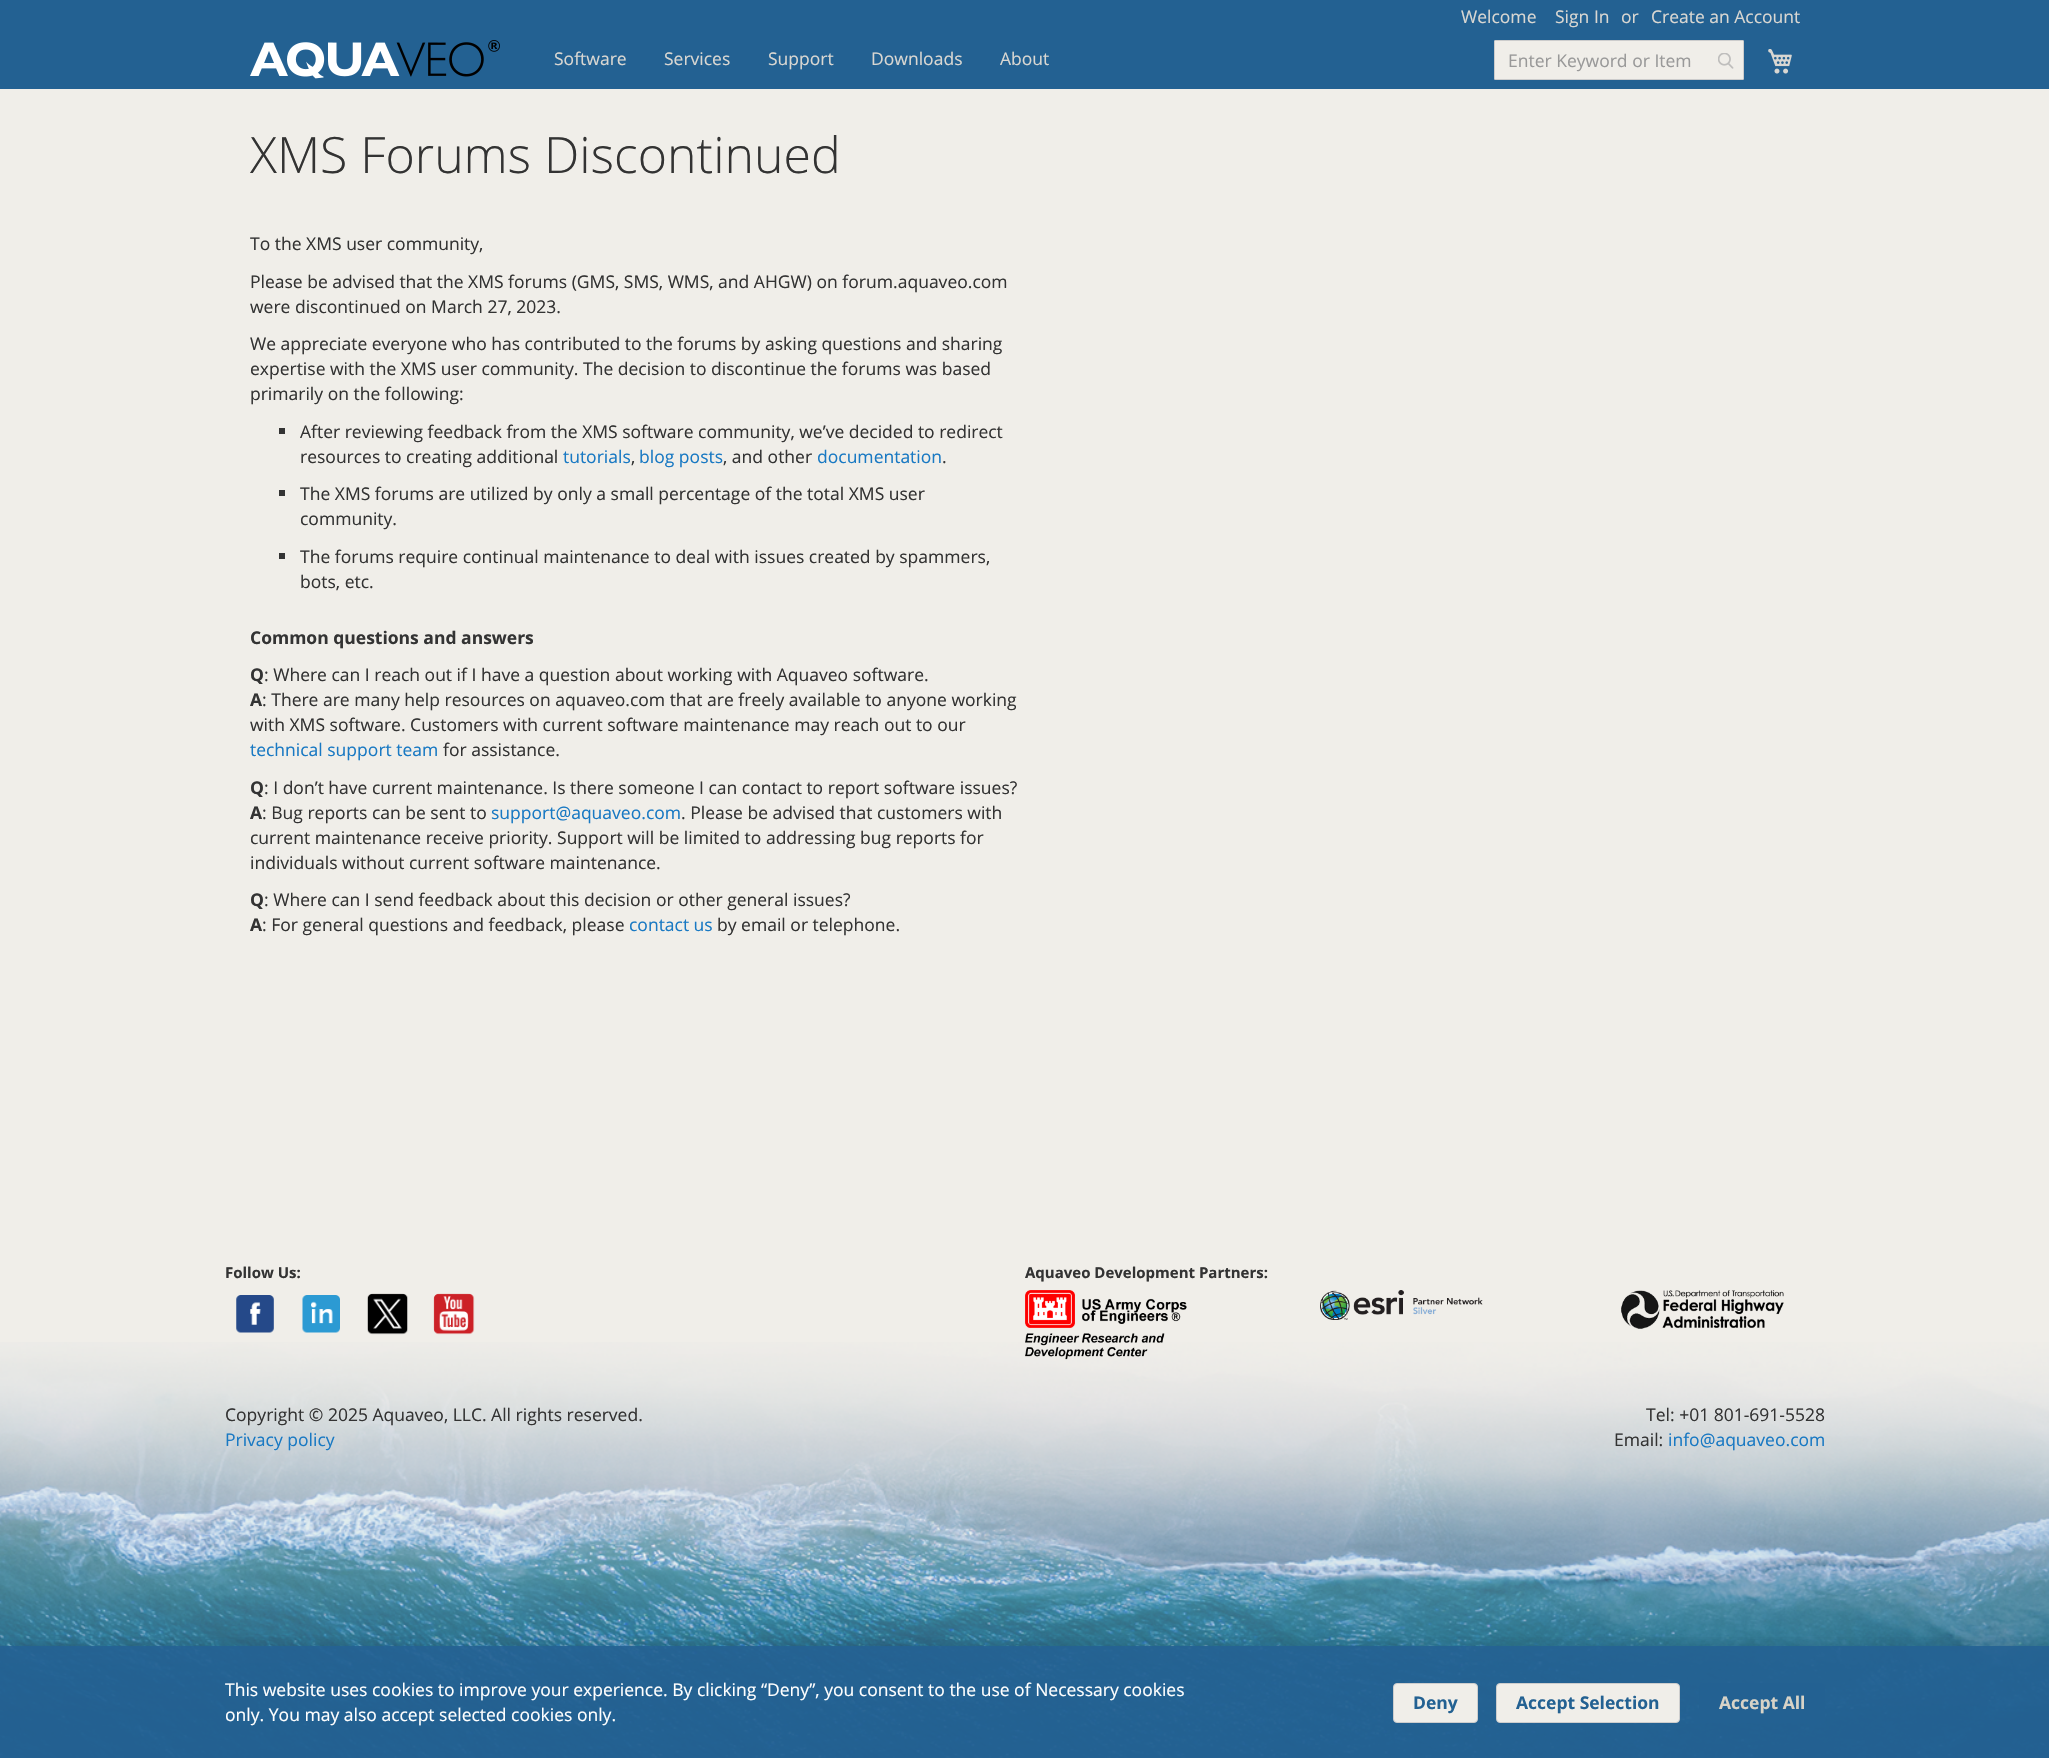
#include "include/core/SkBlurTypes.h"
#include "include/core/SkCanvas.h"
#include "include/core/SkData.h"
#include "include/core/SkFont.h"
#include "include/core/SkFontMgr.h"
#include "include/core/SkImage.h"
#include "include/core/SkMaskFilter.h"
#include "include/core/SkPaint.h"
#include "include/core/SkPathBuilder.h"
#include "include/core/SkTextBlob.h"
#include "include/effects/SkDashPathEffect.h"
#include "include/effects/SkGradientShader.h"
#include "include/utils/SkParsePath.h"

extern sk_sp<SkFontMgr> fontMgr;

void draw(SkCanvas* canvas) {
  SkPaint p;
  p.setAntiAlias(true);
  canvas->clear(SkColorSetRGB(240, 238, 233));
  p.setColor(SkColorSetRGB(35, 97, 146));
  canvas->drawRect(SkRect::MakeLTRB(0, 0, 2049, 89), p);
  canvas->drawImageRect(SkImages::DeferredFromEncodedData(SkData::MakeFromFileName("images/1.png")), SkRect::MakeLTRB(250, 40, 500, 79), SkSamplingOptions());
  p.setColor(SkColorSetRGB(240, 238, 233));
  canvas->drawRoundRect(SkRect::MakeLTRB(1494.5f, 40.5f, 1743.5f, 79.5f), 0.5f, 0.5f, p);
  p.setStyle(SkPaint::kStroke_Style);
  p.setStrokeWidth(1);
  p.setColor(SkColorSetRGB(204, 204, 204));
  canvas->drawRoundRect(SkRect::MakeLTRB(1494.5f, 40.5f, 1743.5f, 79.5f), 0.5f, 0.5f, p);
  canvas->drawImageRect(SkImages::DeferredFromEncodedData(SkData::MakeFromFileName("images/2.png")), SkRect::MakeLTRB(1718, 53, 1734, 69), SkSamplingOptions());
  canvas->drawImageRect(SkImages::DeferredFromEncodedData(SkData::MakeFromFileName("images/3.png")), SkRect::MakeLTRB(1768, 49, 1792, 74), SkSamplingOptions());
  p.setStyle(SkPaint::kFill_Style);
  p.setColor(SkColorSetRGB(51, 51, 51));
  canvas->drawRect(SkRect::MakeLTRB(279, 428, 285, 434), p);
  canvas->drawRect(SkRect::MakeLTRB(279, 490, 285, 496), p);
  canvas->drawRect(SkRect::MakeLTRB(279, 553, 285, 559), p);
  canvas->drawImageRect(SkImages::DeferredFromEncodedData(SkData::MakeFromFileName("images/4.png")), SkRect::MakeLTRB(0, 1342, 2049, 1758), SkSamplingOptions());
  canvas->drawImageRect(SkImages::DeferredFromEncodedData(SkData::MakeFromFileName("images/5.png")), SkRect::MakeLTRB(236, 1295, 274, 1333), SkSamplingOptions());
  canvas->drawImageRect(SkImages::DeferredFromEncodedData(SkData::MakeFromFileName("images/6.png")), SkRect::MakeLTRB(302, 1295, 340, 1333), SkSamplingOptions());
  canvas->drawImageRect(SkImages::DeferredFromEncodedData(SkData::MakeFromFileName("images/7.png")), SkRect::MakeLTRB(367, 1293, 408, 1335), SkSamplingOptions());
  canvas->drawImageRect(SkImages::DeferredFromEncodedData(SkData::MakeFromFileName("images/8.png")), SkRect::MakeLTRB(433, 1293, 475, 1335), SkSamplingOptions());
  canvas->drawImageRect(SkImages::DeferredFromEncodedData(SkData::MakeFromFileName("images/9.png")), SkRect::MakeLTRB(1025, 1290, 1187, 1360), SkSamplingOptions());
  canvas->drawImageRect(SkImages::DeferredFromEncodedData(SkData::MakeFromFileName("images/10.png")), SkRect::MakeLTRB(1320, 1290, 1483, 1320), SkSamplingOptions());
  canvas->drawImageRect(SkImages::DeferredFromEncodedData(SkData::MakeFromFileName("images/11.png")), SkRect::MakeLTRB(1621, 1290, 1784, 1329), SkSamplingOptions());
  canvas->save();
  canvas->clipRect(SkRect::MakeLTRB(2, 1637, 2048, 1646));
  p.setColor(SkColorSetARGB(51, 0, 0, 0));
  p.setMaskFilter(SkMaskFilter::MakeBlur(kNormal_SkBlurStyle, 12.5f));
  canvas->drawRect(SkRect::MakeLTRB(6, 1653, 2044, 1753), p);
  p.setMaskFilter(nullptr);
  canvas->restore();
  p.setColor(SkColorSetARGB(230, 35, 97, 146));
  canvas->drawRect(SkRect::MakeLTRB(0, 1646, 2049, 1758), p);
  p.setColor(SkColorSetRGB(240, 238, 233));
  canvas->drawRoundRect(SkRect::MakeLTRB(1393.5f, 1683.5f, 1477.5f, 1722.5f), 3.5f, 3.5f, p);
  p.setStyle(SkPaint::kStroke_Style);
  p.setColor(SkColorSetRGB(205, 205, 205));
  canvas->drawRoundRect(SkRect::MakeLTRB(1393.5f, 1683.5f, 1477.5f, 1722.5f), 3.5f, 3.5f, p);
  p.setStyle(SkPaint::kFill_Style);
  p.setColor(SkColorSetRGB(240, 238, 233));
  canvas->drawRoundRect(SkRect::MakeLTRB(1496.5f, 1683.5f, 1679.5f, 1722.5f), 3.5f, 3.5f, p);
  p.setStyle(SkPaint::kStroke_Style);
  p.setColor(SkColorSetRGB(205, 205, 205));
  canvas->drawRoundRect(SkRect::MakeLTRB(1496.5f, 1683.5f, 1679.5f, 1722.5f), 3.5f, 3.5f, p);
  p.setStyle(SkPaint::kFill_Style);
  p.setColor(SkColorSetRGB(35, 97, 146));
  canvas->drawRoundRect(SkRect::MakeLTRB(1699, 1683, 1825, 1723), 4, 4, p);
  SkFont font1(fontMgr->matchFamilyStyle("Open Sans", SkFontStyle::Normal()), 17.5f);
  font1.setSubpixel(true);
  p.setColor(SkColorSetRGB(217, 215, 210));
  canvas->drawString("Welcome", 1461, 23, font1, p);
  canvas->drawString("Sign In", 1555, 23, font1, p);
  canvas->drawString("or", 1621, 23, font1, p);
  canvas->drawString("Create an Account", 1651, 23, font1, p);
  canvas->drawString("Software", 554, 65, font1, p);
  canvas->drawString("Services", 664, 65, font1, p);
  canvas->drawString("Support", 768, 65, font1, p);
  canvas->drawString("Downloads", 871, 65, font1, p);
  canvas->drawString("About", 1000, 65, font1, p);
  p.setColor(SkColorSetRGB(153, 153, 153));
  canvas->drawString("Enter Keyword or Item", 1508, 67, font1, p);
  SkFont font2(fontMgr->matchFamilyStyle("Open Sans", SkFontStyle(300, SkFontStyle::kNormal_Width, SkFontStyle::kUpright_Slant)), 50);
  font2.setSubpixel(true);
  p.setColor(SkColorSetRGB(51, 51, 51));
  canvas->drawString("XMS Forums Discontinued", 250, 173, font2, p);
  canvas->drawString("To the XMS user community,", 250, 250, font1, p);
  canvas->drawString("Please be advised that the XMS forums (GMS, SMS, WMS, and AHGW) on forum.aquaveo.com", 250, 288, font1, p);
  canvas->drawString("were discontinued on March 27, 2023.", 250, 313, font1, p);
  canvas->drawString("We appreciate everyone who has contributed to the forums by asking questions and sharing", 250, 350, font1, p);
  canvas->drawString("expertise with the XMS user community. The decision to discontinue the forums was based", 250, 375, font1, p);
  canvas->drawString("primarily on the following:", 250, 400, font1, p);
  canvas->drawString("After reviewing feedback from the XMS software community, we’ve decided to redirect", 300, 438, font1, p);
  canvas->drawString("resources to creating additional", 300, 463, font1, p);
  p.setColor(SkColorSetRGB(25, 121, 195));
  canvas->drawString("tutorials", 563, 463, font1, p);
  p.setColor(SkColorSetRGB(51, 51, 51));
  canvas->drawString(",", 631, 463, font1, p);
  p.setColor(SkColorSetRGB(25, 121, 195));
  canvas->drawString("blog posts", 639, 463, font1, p);
  p.setColor(SkColorSetRGB(51, 51, 51));
  canvas->drawString(", and other", 723, 463, font1, p);
  p.setColor(SkColorSetRGB(25, 121, 195));
  canvas->drawString("documentation", 817, 463, font1, p);
  p.setColor(SkColorSetRGB(51, 51, 51));
  canvas->drawString(".", 942, 463, font1, p);
  canvas->drawString("The XMS forums are utilized by only a small percentage of the total XMS user", 300, 500, font1, p);
  canvas->drawString("community.", 300, 525, font1, p);
  canvas->drawString("The forums require continual maintenance to deal with issues created by spammers,", 300, 563, font1, p);
  canvas->drawString("bots, etc.", 300, 588, font1, p);
  SkFont font3(fontMgr->matchFamilyStyle("Open Sans", SkFontStyle::Bold()), 17.5f);
  font3.setSubpixel(true);
  canvas->drawString("Common questions and answers", 250, 644, font3, p);
  canvas->drawString("Q", 250, 681, font3, p);
  canvas->drawString(": Where can I reach out if I have a question about working with Aquaveo software.", 264, 681, font1, p);
  canvas->drawString("A", 250, 706, font3, p);
  canvas->drawString(": There are many help resources on aquaveo.com that are freely available to anyone working", 262, 706, font1, p);
  canvas->drawString("with XMS software. Customers with current software maintenance may reach out to our", 250, 731, font1, p);
  p.setColor(SkColorSetRGB(25, 121, 195));
  canvas->drawString("technical support team", 250, 756, font1, p);
  p.setColor(SkColorSetRGB(51, 51, 51));
  canvas->drawString("for assistance.", 443, 756, font1, p);
  canvas->drawString("Q", 250, 794, font3, p);
  canvas->drawString(": I don’t have current maintenance. Is there someone I can contact to report software issues?", 264, 794, font1, p);
  canvas->drawString("A", 250, 819, font3, p);
  canvas->drawString(": Bug reports can be sent to", 262, 819, font1, p);
  p.setColor(SkColorSetRGB(25, 121, 195));
  canvas->drawString("support@aquaveo.com", 491, 819, font1, p);
  p.setColor(SkColorSetRGB(51, 51, 51));
  canvas->drawString(". Please be advised that customers with", 681, 819, font1, p);
  canvas->drawString("current maintenance receive priority. Support will be limited to addressing bug reports for", 250, 844, font1, p);
  canvas->drawString("individuals without current software maintenance.", 250, 869, font1, p);
  canvas->drawString("Q", 250, 906, font3, p);
  canvas->drawString(": Where can I send feedback about this decision or other general issues?", 264, 906, font1, p);
  canvas->drawString("A", 250, 931, font3, p);
  canvas->drawString(": For general questions and feedback, please", 262, 931, font1, p);
  p.setColor(SkColorSetRGB(25, 121, 195));
  canvas->drawString("contact us", 629, 931, font1, p);
  p.setColor(SkColorSetRGB(51, 51, 51));
  canvas->drawString("by email or telephone.", 717, 931, font1, p);
  SkFont font4(fontMgr->matchFamilyStyle("Open Sans", SkFontStyle::Bold()), 15);
  font4.setSubpixel(true);
  canvas->drawString("Follow Us:", 225, 1278, font4, p);
  canvas->drawString("Aquaveo Development Partners:", 1025, 1278, font4, p);
  canvas->drawString("Copyright © 2025 Aquaveo, LLC. All rights reserved.", 225, 1421, font1, p);
  p.setColor(SkColorSetRGB(25, 121, 195));
  canvas->drawString("Privacy policy", 225, 1446, font1, p);
  p.setColor(SkColorSetRGB(51, 51, 51));
  canvas->drawString("Tel: +01 801-691-5528", 1646, 1421, font1, p);
  canvas->drawString("Email:", 1614, 1446, font1, p);
  p.setColor(SkColorSetRGB(25, 121, 195));
  canvas->drawString("info@aquaveo.com", 1668, 1446, font1, p);
  p.setColor(SK_ColorWHITE);
  canvas->drawString("This website uses cookies to improve your experience. By clicking “Deny”, you consent to the use of Necessary cookies", 225, 1696, font1, p);
  canvas->drawString("only. You may also accept selected cookies only.", 225, 1721, font1, p);
  p.setColor(SkColorSetRGB(35, 97, 146));
  canvas->drawString("Deny", 1413, 1709, font3, p);
  canvas->drawString("Accept Selection", 1516, 1709, font3, p);
  p.setColor(SkColorSetRGB(215, 211, 199));
  canvas->drawString("Accept All", 1719, 1709, font3, p);
}
